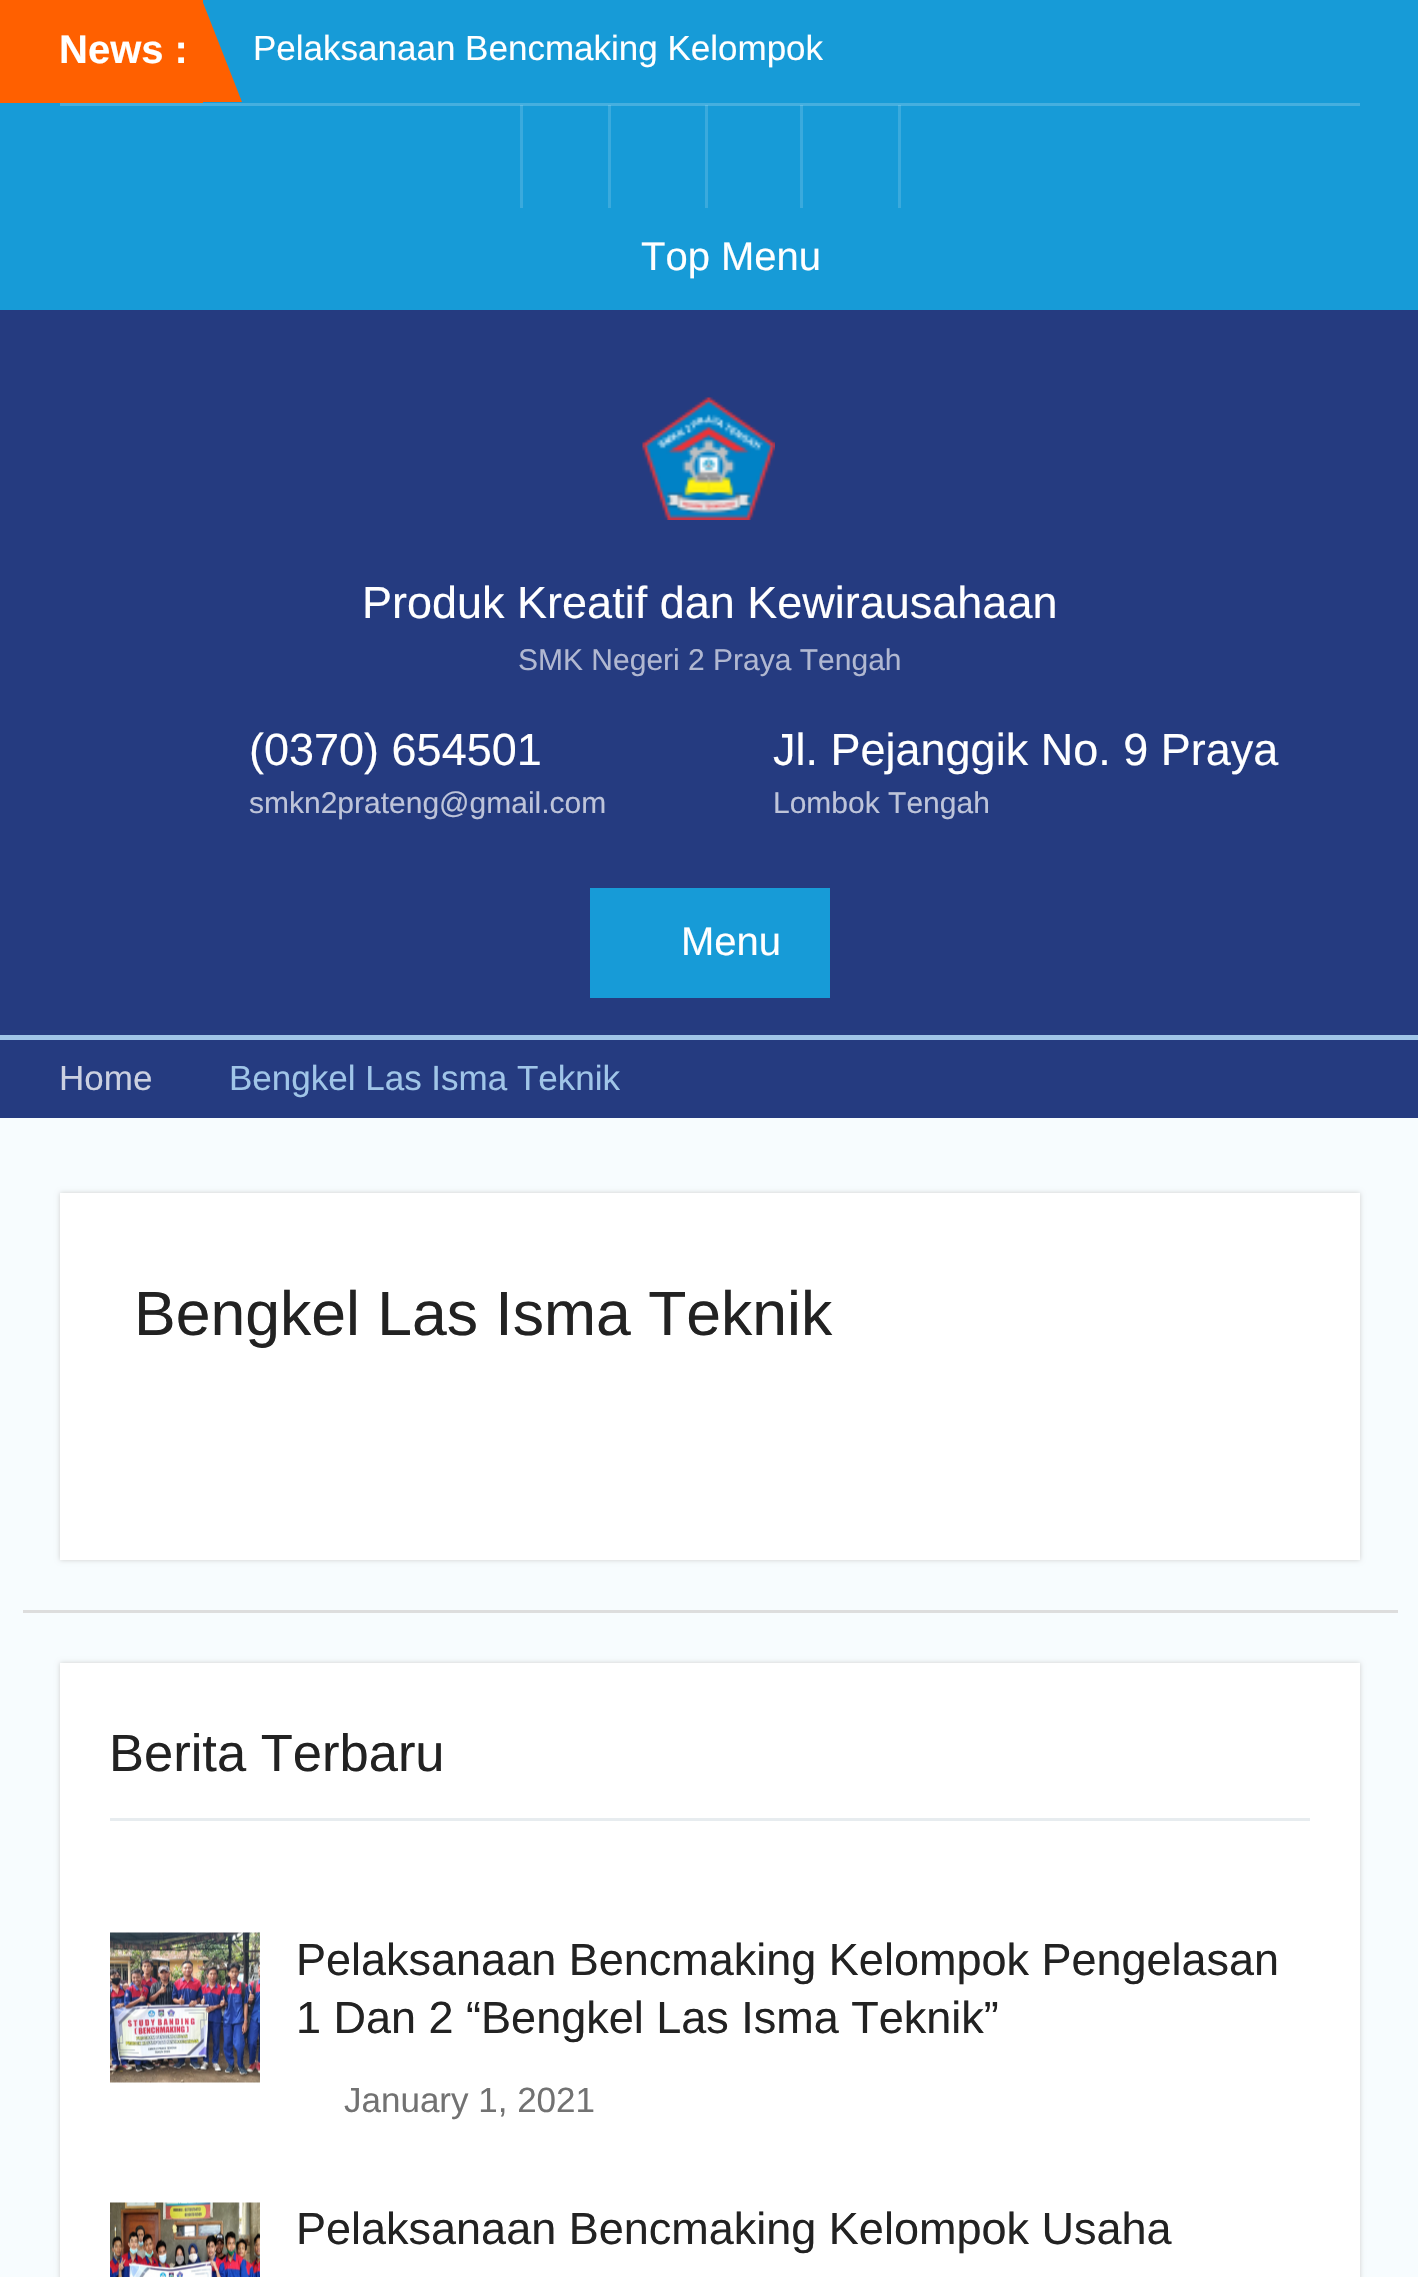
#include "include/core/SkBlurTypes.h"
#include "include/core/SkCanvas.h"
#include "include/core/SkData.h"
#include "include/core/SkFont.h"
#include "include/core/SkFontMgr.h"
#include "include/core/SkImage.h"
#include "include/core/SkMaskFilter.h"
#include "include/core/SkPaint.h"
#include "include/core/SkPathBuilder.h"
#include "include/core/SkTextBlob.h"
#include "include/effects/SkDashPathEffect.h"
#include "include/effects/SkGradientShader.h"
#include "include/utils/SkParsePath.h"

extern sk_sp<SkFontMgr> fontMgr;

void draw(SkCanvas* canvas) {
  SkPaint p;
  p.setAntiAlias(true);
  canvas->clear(SkColorSetRGB(247, 252, 254));
  p.setColor(SkColorSetRGB(23, 155, 215));
  canvas->drawRect(SkRect::MakeLTRB(0, 0, 1418, 310), p);
  p.setColor(SkColorSetRGB(58, 170, 221));
  canvas->drawRect(SkRect::MakeLTRB(898, 105, 901, 208), p);
  canvas->drawRect(SkRect::MakeLTRB(800, 105, 803, 208), p);
  canvas->drawRect(SkRect::MakeLTRB(705, 105, 708, 208), p);
  canvas->drawRect(SkRect::MakeLTRB(520, 105, 523, 208), p);
  canvas->drawRect(SkRect::MakeLTRB(608, 105, 611, 208), p);
  p.setColor(SkColorSetRGB(255, 96, 0));
  canvas->drawRect(SkRect::MakeLTRB(0, 0, 203, 103), p);
  canvas->drawPath(SkPathBuilder().moveTo(202, 102).lineTo(202, 0).lineTo(242, 102).close().detach(), p);
  p.setColor(SkColorSetRGB(69, 175, 223));
  canvas->drawRect(SkRect::MakeLTRB(60, 103, 1360, 106), p);
  p.setColor(SkColorSetRGB(97, 187, 228));
  canvas->drawRect(SkRect::MakeLTRB(898, 105, 901, 106), p);
  canvas->drawRect(SkRect::MakeLTRB(800, 105, 803, 106), p);
  canvas->drawRect(SkRect::MakeLTRB(705, 105, 708, 106), p);
  canvas->drawRect(SkRect::MakeLTRB(520, 105, 523, 106), p);
  canvas->drawRect(SkRect::MakeLTRB(608, 105, 611, 106), p);
  p.setColor(SkColorSetRGB(37, 59, 128));
  canvas->drawRect(SkRect::MakeLTRB(0, 310, 1418, 1035), p);
  canvas->drawImageRect(SkImages::DeferredFromEncodedData(SkData::MakeFromFileName("images/1.png")), SkRect::MakeLTRB(642, 397, 775, 520), SkSamplingOptions());
  p.setColor(SkColorSetRGB(23, 155, 215));
  canvas->drawRect(SkRect::MakeLTRB(590, 888, 830, 998), p);
  p.setColor(SkColorSetRGB(37, 59, 128));
  canvas->drawRect(SkRect::MakeLTRB(0, 1040, 1418, 1118), p);
  p.setColor(SkColorSetRGB(160, 197, 232));
  canvas->drawRect(SkRect::MakeLTRB(0, 1035, 1418, 1040), p);
  p.setColor(SkColorSetRGB(221, 221, 221));
  canvas->drawRect(SkRect::MakeLTRB(23, 1610, 1398, 1613), p);
  p.setColor(SkColorSetRGB(207, 207, 207));
  p.setMaskFilter(SkMaskFilter::MakeBlur(kNormal_SkBlurStyle, 2.5f));
  canvas->drawRect(SkRect::MakeLTRB(60, 1193, 1360, 1560), p);
  p.setMaskFilter(nullptr);
  p.setColor(SK_ColorWHITE);
  canvas->drawRect(SkRect::MakeLTRB(60, 1193, 1360, 1560), p);
  p.setColor(SkColorSetRGB(207, 207, 207));
  p.setMaskFilter(SkMaskFilter::MakeBlur(kNormal_SkBlurStyle, 2.5f));
  canvas->drawRect(SkRect::MakeLTRB(60, 1663, 1360, 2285), p);
  p.setMaskFilter(nullptr);
  p.setColor(SK_ColorWHITE);
  canvas->drawRect(SkRect::MakeLTRB(60, 1663, 1360, 2277), p);
  p.setColor(SkColorSetRGB(231, 236, 239));
  canvas->drawRect(SkRect::MakeLTRB(110, 1818, 1310, 1821), p);
  canvas->drawImageRect(SkImages::DeferredFromEncodedData(SkData::MakeFromFileName("images/2.png")), SkRect::MakeLTRB(110, 1932, 260, 2083), SkSamplingOptions());
  canvas->drawImageRect(SkImages::DeferredFromEncodedData(SkData::MakeFromFileName("images/3.png")), SkRect::MakeLTRB(110, 2202, 260, 2277), SkSamplingOptions());
  SkFont font1(fontMgr->matchFamilyStyle("Liberation Sans", SkFontStyle::Bold()), 40);
  font1.setSubpixel(true);
  p.setColor(SK_ColorWHITE);
  canvas->drawString("News :", 59, 63, font1, p);
  SkFont font2(fontMgr->matchFamilyStyle("Liberation Sans", SkFontStyle::Normal()), 35);
  font2.setSubpixel(true);
  canvas->drawString("Pelaksanaan Bencmaking Kelompok", 253, 60, font2, p);
  SkFont font3(fontMgr->matchFamilyStyle("Liberation Sans", SkFontStyle::Normal()), 40);
  font3.setSubpixel(true);
  canvas->drawString("Top Menu", 641, 270, font3, p);
  SkFont font4(fontMgr->matchFamilyStyle("Liberation Sans", SkFontStyle::Normal()), 45);
  font4.setSubpixel(true);
  canvas->drawString("Produk Kreatif dan Kewirausahaan", 362, 618, font4, p);
  SkFont font5(fontMgr->matchFamilyStyle("Liberation Sans", SkFontStyle::Normal()), 30);
  font5.setSubpixel(true);
  p.setColor(SkColorSetRGB(177, 184, 209));
  canvas->drawString("SMK Negeri 2 Praya Tengah", 518, 670, font5, p);
  p.setColor(SK_ColorWHITE);
  canvas->drawString("(0370) 654501", 249, 765, font4, p);
  p.setColor(SkColorSetRGB(190, 196, 217));
  canvas->drawString("smkn2prateng@gmail.com", 249, 813, font5, p);
  p.setColor(SK_ColorWHITE);
  canvas->drawString("Jl. Pejanggik No. 9 Praya", 773, 765, font4, p);
  p.setColor(SkColorSetRGB(190, 196, 217));
  canvas->drawString("Lombok Tengah", 773, 813, font5, p);
  p.setColor(SK_ColorWHITE);
  canvas->drawString("Menu", 681, 955, font3, p);
  p.setColor(SkColorSetRGB(203, 208, 225));
  canvas->drawString("Home", 59, 1090, font2, p);
  p.setColor(SkColorSetRGB(160, 197, 232));
  canvas->drawString("Bengkel Las Isma Teknik", 229, 1090, font2, p);
  SkFont font6(fontMgr->matchFamilyStyle("Liberation Sans", SkFontStyle::Normal()), 62.5f);
  font6.setSubpixel(true);
  p.setColor(SkColorSetRGB(34, 34, 34));
  canvas->drawString("Bengkel Las Isma Teknik", 134, 1335, font6, p);
  SkFont font7(fontMgr->matchFamilyStyle("Liberation Sans", SkFontStyle::Normal()), 52.5f);
  font7.setSubpixel(true);
  canvas->drawString("Berita Terbaru", 109, 1771, font7, p);
  canvas->drawString("Pelaksanaan Bencmaking Kelompok Pengelasan", 296, 1975, font4, p);
  canvas->drawString("1 Dan 2 “Bengkel Las Isma Teknik”", 296, 2033, font4, p);
  p.setColor(SkColorSetRGB(114, 114, 114));
  canvas->drawString("January 1, 2021", 344, 2112, font2, p);
  p.setColor(SkColorSetRGB(34, 34, 34));
  canvas->drawString("Pelaksanaan Bencmaking Kelompok Usaha", 296, 2244, font4, p);
}
